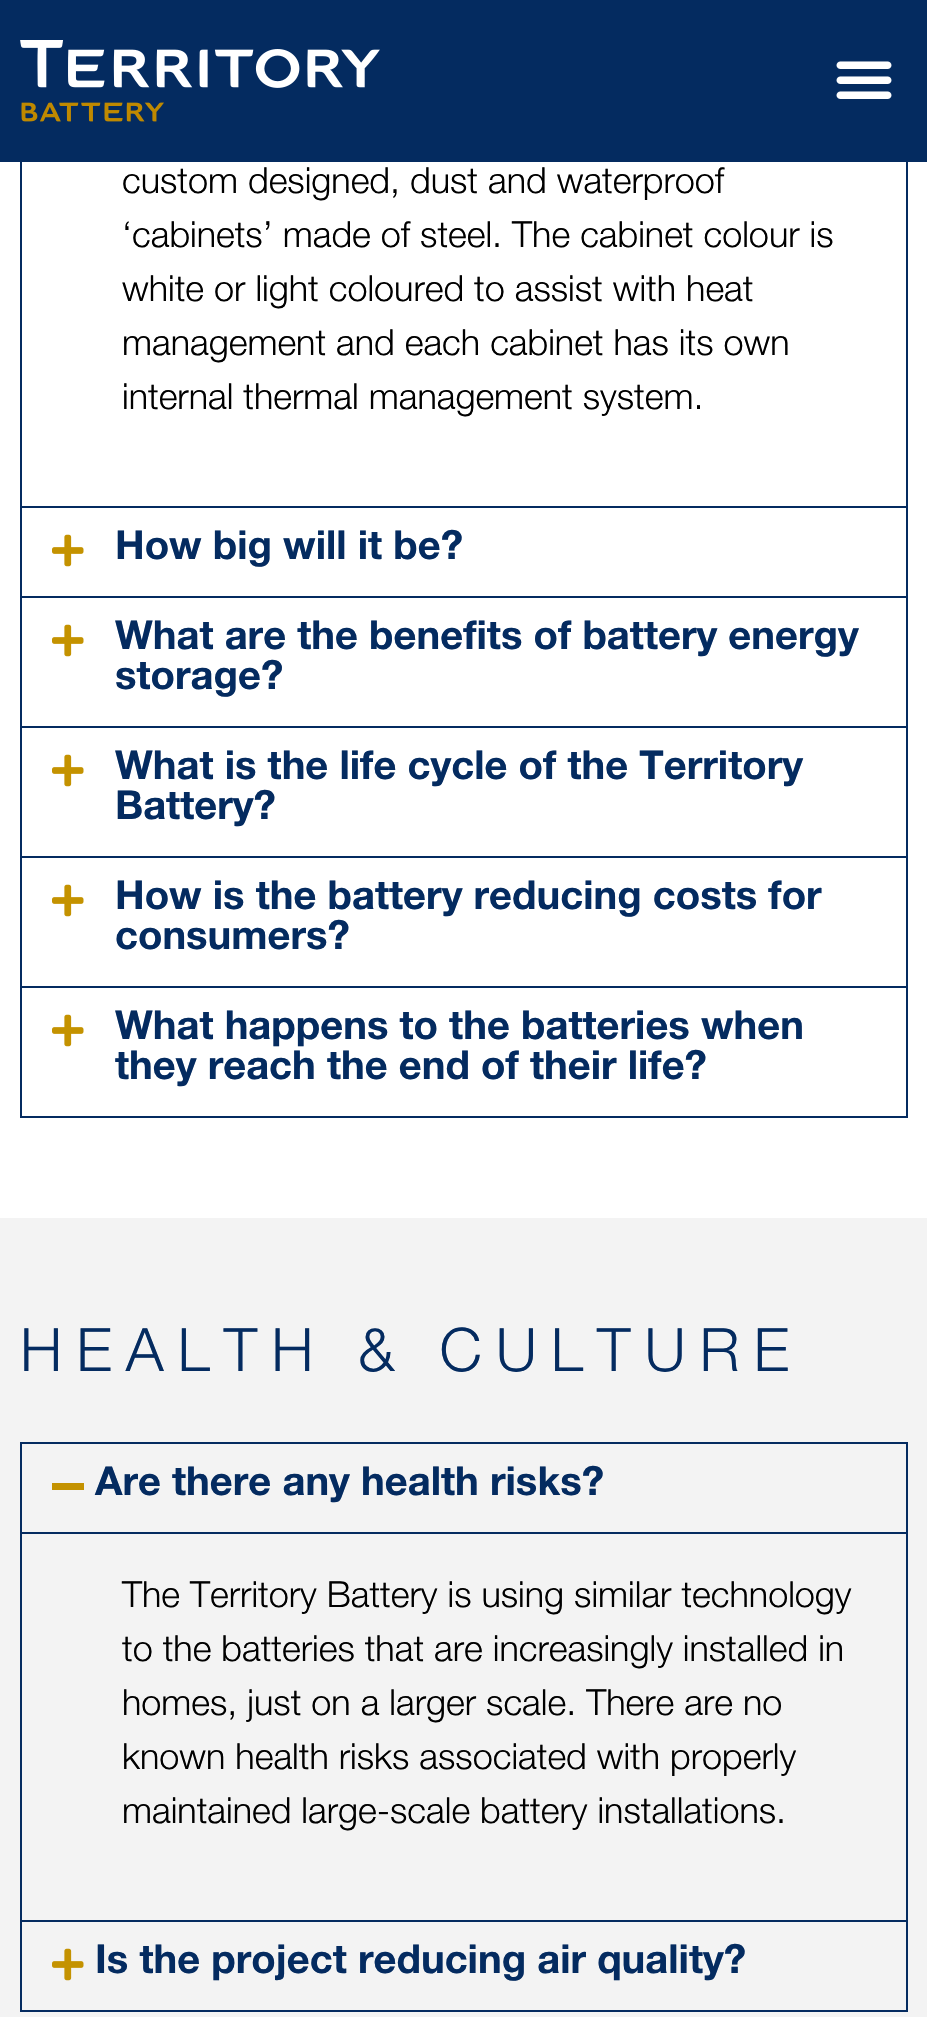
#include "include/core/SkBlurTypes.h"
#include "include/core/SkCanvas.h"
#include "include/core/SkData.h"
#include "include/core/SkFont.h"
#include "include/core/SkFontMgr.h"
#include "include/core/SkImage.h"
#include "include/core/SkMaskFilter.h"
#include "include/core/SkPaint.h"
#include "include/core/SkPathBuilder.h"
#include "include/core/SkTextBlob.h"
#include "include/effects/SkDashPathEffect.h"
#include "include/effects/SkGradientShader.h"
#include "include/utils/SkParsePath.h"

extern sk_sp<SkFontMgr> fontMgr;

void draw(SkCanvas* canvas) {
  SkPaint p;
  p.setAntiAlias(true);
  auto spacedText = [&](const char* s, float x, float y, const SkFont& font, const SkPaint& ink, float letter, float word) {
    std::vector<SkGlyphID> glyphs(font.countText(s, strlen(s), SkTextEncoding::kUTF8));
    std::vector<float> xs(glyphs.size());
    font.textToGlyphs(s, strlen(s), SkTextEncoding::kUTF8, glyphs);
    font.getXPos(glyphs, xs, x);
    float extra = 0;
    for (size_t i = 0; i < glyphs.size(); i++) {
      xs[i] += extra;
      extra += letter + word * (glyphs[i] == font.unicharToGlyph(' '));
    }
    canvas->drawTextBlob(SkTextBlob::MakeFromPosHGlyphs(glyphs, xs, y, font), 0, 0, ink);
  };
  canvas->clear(SK_ColorWHITE);
  p.setStyle(SkPaint::kStroke_Style);
  p.setStrokeWidth(2);
  p.setColor(SkColorSetRGB(4, 43, 96));
  canvas->drawRect(SkRect::MakeLTRB(21, -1, 907, 507), p);
  p.setStyle(SkPaint::kFill_Style);
  canvas->drawRect(SkRect::MakeLTRB(0, 0, 927, 162), p);
  canvas->drawImageRect(SkImages::DeferredFromEncodedData(SkData::MakeFromFileName("images/1.png")), SkRect::MakeLTRB(20, 40, 380, 122), SkSamplingOptions());
  canvas->drawImageRect(SkImages::DeferredFromEncodedData(SkData::MakeFromFileName("images/2.png")), SkRect::MakeLTRB(836, 61, 892, 99), SkSamplingOptions());
  canvas->drawRect(SkRect::MakeLTRB(906, 508, 908, 1118), p);
  canvas->drawRect(SkRect::MakeLTRB(20, 596, 908, 598), p);
  canvas->drawRect(SkRect::MakeLTRB(20, 508, 22, 598), p);
  canvas->drawImageRect(SkImages::DeferredFromEncodedData(SkData::MakeFromFileName("images/3.png")), SkRect::MakeLTRB(52, 534, 84, 567), SkSamplingOptions());
  canvas->drawRect(SkRect::MakeLTRB(20, 726, 908, 728), p);
  canvas->drawRect(SkRect::MakeLTRB(20, 598, 22, 728), p);
  canvas->drawImageRect(SkImages::DeferredFromEncodedData(SkData::MakeFromFileName("images/3.png")), SkRect::MakeLTRB(52, 624, 84, 657), SkSamplingOptions());
  canvas->drawRect(SkRect::MakeLTRB(20, 856, 908, 858), p);
  canvas->drawRect(SkRect::MakeLTRB(20, 728, 22, 858), p);
  canvas->drawImageRect(SkImages::DeferredFromEncodedData(SkData::MakeFromFileName("images/3.png")), SkRect::MakeLTRB(52, 754, 84, 787), SkSamplingOptions());
  canvas->drawRect(SkRect::MakeLTRB(20, 986, 908, 988), p);
  canvas->drawRect(SkRect::MakeLTRB(20, 858, 22, 988), p);
  canvas->drawImageRect(SkImages::DeferredFromEncodedData(SkData::MakeFromFileName("images/3.png")), SkRect::MakeLTRB(52, 884, 84, 917), SkSamplingOptions());
  canvas->drawRect(SkRect::MakeLTRB(20, 1116, 908, 1118), p);
  canvas->drawRect(SkRect::MakeLTRB(20, 988, 22, 1118), p);
  canvas->drawImageRect(SkImages::DeferredFromEncodedData(SkData::MakeFromFileName("images/3.png")), SkRect::MakeLTRB(52, 1014, 84, 1047), SkSamplingOptions());
  p.setColor(SkColorSetRGB(243, 243, 243));
  canvas->drawRect(SkRect::MakeLTRB(0, 1218, 927, 2017), p);
  p.setStyle(SkPaint::kStroke_Style);
  p.setColor(SkColorSetRGB(4, 43, 96));
  canvas->drawRect(SkRect::MakeLTRB(21, 1443, 907, 1921), p);
  p.setStyle(SkPaint::kFill_Style);
  p.setColor(SkColorSetRGB(196, 146, 0));
  canvas->drawRect(SkRect::MakeLTRB(52, 1483, 84, 1490), p);
  p.setColor(SkColorSetRGB(4, 43, 96));
  canvas->drawRect(SkRect::MakeLTRB(22, 1532, 906, 1534), p);
  canvas->drawRect(SkRect::MakeLTRB(906, 1922, 908, 2012), p);
  canvas->drawRect(SkRect::MakeLTRB(20, 2010, 908, 2012), p);
  canvas->drawRect(SkRect::MakeLTRB(20, 1922, 22, 2012), p);
  canvas->drawImageRect(SkImages::DeferredFromEncodedData(SkData::MakeFromFileName("images/4.png")), SkRect::MakeLTRB(52, 1948, 84, 1981), SkSamplingOptions());
  SkFont font1(fontMgr->matchFamilyStyle("Helvetica Neue", SkFontStyle(300, SkFontStyle::kNormal_Width, SkFontStyle::kUpright_Slant)), 36);
  font1.setSubpixel(true);
  p.setColor(SK_ColorBLACK);
  canvas->drawString("custom designed, dust and waterproof", 122, 193, font1, p);
  canvas->drawString("‘cabinets’ made of steel. The cabinet colour is", 122, 247, font1, p);
  canvas->drawString("white or light coloured to assist with heat", 122, 301, font1, p);
  canvas->drawString("management and each cabinet has its own", 122, 355, font1, p);
  canvas->drawString("internal thermal management system.", 122, 409, font1, p);
  SkFont font2(fontMgr->matchFamilyStyle("Helvetica Neue", SkFontStyle::Bold()), 40);
  font2.setSubpixel(true);
  p.setColor(SkColorSetRGB(4, 43, 96));
  canvas->drawString("How big will it be?", 115, 559, font2, p);
  canvas->drawString("What are the benefits of battery energy", 115, 649, font2, p);
  canvas->drawString("storage?", 115, 689, font2, p);
  canvas->drawString("What is the life cycle of the Territory", 115, 779, font2, p);
  canvas->drawString("Battery?", 115, 819, font2, p);
  canvas->drawString("How is the battery reducing costs for", 115, 909, font2, p);
  canvas->drawString("consumers?", 115, 949, font2, p);
  canvas->drawString("What happens to the batteries when", 115, 1039, font2, p);
  canvas->drawString("they reach the end of their life?", 115, 1079, font2, p);
  SkFont font3(fontMgr->matchFamilyStyle("Helvetica Neue", SkFontStyle(300, SkFontStyle::kNormal_Width, SkFontStyle::kUpright_Slant)), 60);
  font3.setSubpixel(true);
  spacedText("HEALTH & CULTURE", 20, 1371, font3, p, 14, 0);
  canvas->drawString("Are there any health risks?", 95, 1495, font2, p);
  p.setColor(SK_ColorBLACK);
  canvas->drawString("The Territory Battery is using similar technology", 122, 1607, font1, p);
  canvas->drawString("to the batteries that are increasingly installed in", 122, 1661, font1, p);
  canvas->drawString("homes, just on a larger scale. There are no", 122, 1715, font1, p);
  canvas->drawString("known health risks associated with properly", 122, 1769, font1, p);
  canvas->drawString("maintained large-scale battery installations.", 122, 1823, font1, p);
  p.setColor(SkColorSetRGB(4, 43, 96));
  canvas->drawString("Is the project reducing air quality?", 95, 1973, font2, p);
}
